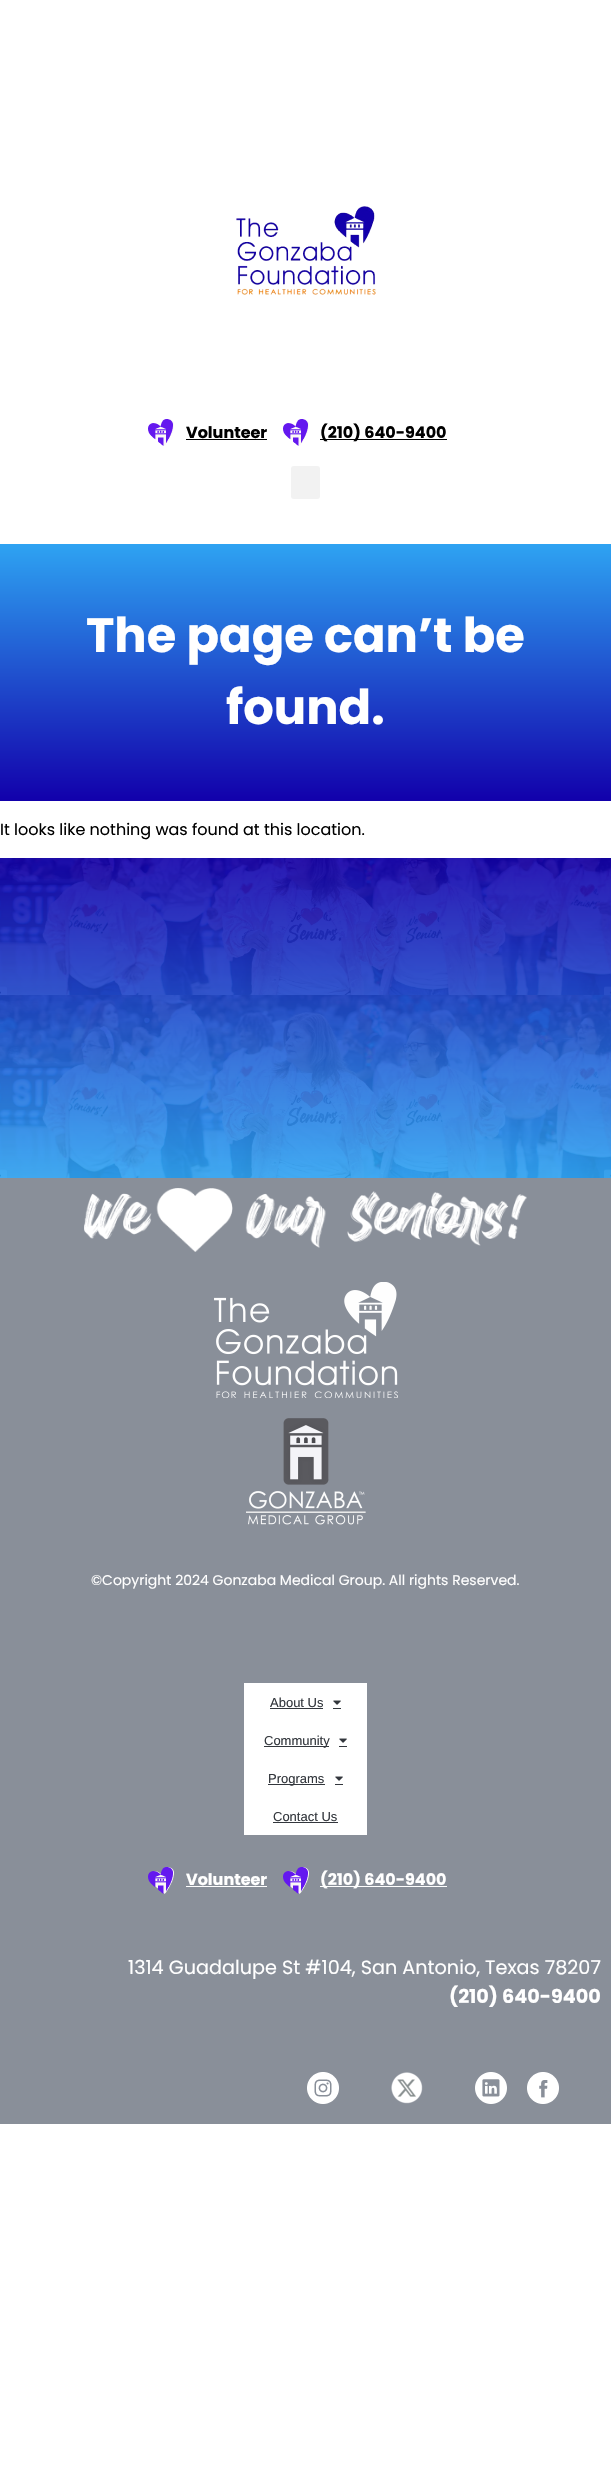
#include "include/core/SkBlurTypes.h"
#include "include/core/SkCanvas.h"
#include "include/core/SkData.h"
#include "include/core/SkFont.h"
#include "include/core/SkFontMgr.h"
#include "include/core/SkImage.h"
#include "include/core/SkMaskFilter.h"
#include "include/core/SkPaint.h"
#include "include/core/SkPathBuilder.h"
#include "include/core/SkTextBlob.h"
#include "include/effects/SkDashPathEffect.h"
#include "include/effects/SkGradientShader.h"
#include "include/utils/SkParsePath.h"

extern sk_sp<SkFontMgr> fontMgr;

void draw(SkCanvas* canvas) {
  SkPaint p;
  p.setAntiAlias(true);
  canvas->clear(SK_ColorWHITE);
  canvas->drawImageRect(SkImages::DeferredFromEncodedData(SkData::MakeFromFileName("images/1.png")), SkRect::MakeLTRB(236, 206, 376, 295), SkSamplingOptions());
  canvas->drawImageRect(SkImages::DeferredFromEncodedData(SkData::MakeFromFileName("images/2.png")), SkRect::MakeLTRB(148, 419, 174, 446), SkSamplingOptions());
  p.setColor(SK_ColorBLACK);
  canvas->drawRect(SkRect::MakeLTRB(186, 439, 267, 440), p);
  canvas->drawImageRect(SkImages::DeferredFromEncodedData(SkData::MakeFromFileName("images/2.png")), SkRect::MakeLTRB(283, 419, 309, 446), SkSamplingOptions());
  canvas->drawRect(SkRect::MakeLTRB(320, 439, 447, 440), p);
  p.setColor(SkColorSetRGB(242, 242, 242));
  canvas->drawRoundRect(SkRect::MakeLTRB(291, 466, 320, 499), 3, 3, p);
  {
    const SkColor colors[] = {SkColorSetRGB(46, 163, 242), SkColorSetRGB(18, 0, 171)};
    const float stops[] = {0, 1};
    const SkPoint ends[] = {{306, 544}, {306, 801}};
    p.setShader(SkGradientShader::MakeLinear(ends, colors, stops, 2, SkTileMode::kClamp));
    p.setAlpha(255);
  }
  canvas->drawRect(SkRect::MakeLTRB(0, 544, 611, 801), p);
  canvas->drawImageRect(SkImages::DeferredFromEncodedData(SkData::MakeFromFileName("images/3.png")), SkRect::MakeLTRB(0, 858, 611, 1178), SkSamplingOptions());
  p.setShader(nullptr);
  p.setColor(SkColorSetRGB(137, 143, 153));
  canvas->drawRect(SkRect::MakeLTRB(0, 1178, 611, 2124), p);
  canvas->drawImageRect(SkImages::DeferredFromEncodedData(SkData::MakeFromFileName("images/4.png")), SkRect::MakeLTRB(84, 1188, 527, 1252), SkSamplingOptions());
  canvas->drawImageRect(SkImages::DeferredFromEncodedData(SkData::MakeFromFileName("images/5.png")), SkRect::MakeLTRB(214, 1282, 398, 1398), SkSamplingOptions());
  canvas->drawImageRect(SkImages::DeferredFromEncodedData(SkData::MakeFromFileName("images/6.png")), SkRect::MakeLTRB(246, 1418, 366, 1525), SkSamplingOptions());
  p.setColor(SK_ColorWHITE);
  canvas->drawRect(SkRect::MakeLTRB(244, 1683, 367, 1835), p);
  p.setColor(SkColorSetRGB(51, 55, 61));
  canvas->drawRect(SkRect::MakeLTRB(270, 1708, 323, 1709), p);
  canvas->drawImageRect(SkImages::DeferredFromEncodedData(SkData::MakeFromFileName("images/7.png")), SkRect::MakeLTRB(333, 1700, 341, 1705), SkSamplingOptions());
  canvas->drawRect(SkRect::MakeLTRB(333, 1708, 341, 1709), p);
  canvas->drawRect(SkRect::MakeLTRB(264, 1746, 329, 1747), p);
  canvas->drawImageRect(SkImages::DeferredFromEncodedData(SkData::MakeFromFileName("images/7.png")), SkRect::MakeLTRB(339, 1738, 347, 1743), SkSamplingOptions());
  canvas->drawRect(SkRect::MakeLTRB(339, 1746, 347, 1747), p);
  canvas->drawRect(SkRect::MakeLTRB(268, 1784, 325, 1785), p);
  canvas->drawImageRect(SkImages::DeferredFromEncodedData(SkData::MakeFromFileName("images/7.png")), SkRect::MakeLTRB(335, 1776, 343, 1781), SkSamplingOptions());
  canvas->drawRect(SkRect::MakeLTRB(335, 1784, 343, 1785), p);
  canvas->drawRect(SkRect::MakeLTRB(273, 1822, 338, 1823), p);
  canvas->drawImageRect(SkImages::DeferredFromEncodedData(SkData::MakeFromFileName("images/8.png")), SkRect::MakeLTRB(148, 1867, 174, 1894), SkSamplingOptions());
  p.setColor(SK_ColorWHITE);
  canvas->drawRect(SkRect::MakeLTRB(186, 1886, 267, 1887), p);
  canvas->drawImageRect(SkImages::DeferredFromEncodedData(SkData::MakeFromFileName("images/8.png")), SkRect::MakeLTRB(283, 1867, 309, 1894), SkSamplingOptions());
  canvas->drawRect(SkRect::MakeLTRB(320, 1886, 447, 1887), p);
  canvas->drawImageRect(SkImages::DeferredFromEncodedData(SkData::MakeFromFileName("images/9.png")), SkRect::MakeLTRB(307, 2072, 339, 2104), SkSamplingOptions());
  canvas->drawImageRect(SkImages::DeferredFromEncodedData(SkData::MakeFromFileName("images/10.png")), SkRect::MakeLTRB(391, 2072, 423, 2104), SkSamplingOptions());
  canvas->drawImageRect(SkImages::DeferredFromEncodedData(SkData::MakeFromFileName("images/11.png")), SkRect::MakeLTRB(475, 2072, 507, 2104), SkSamplingOptions());
  canvas->drawImageRect(SkImages::DeferredFromEncodedData(SkData::MakeFromFileName("images/12.png")), SkRect::MakeLTRB(527, 2072, 559, 2104), SkSamplingOptions());
  SkFont font1(fontMgr->matchFamilyStyle("Poppins", SkFontStyle::Bold()), 16);
  font1.setSubpixel(true);
  p.setColor(SK_ColorBLACK);
  canvas->drawString("Volunteer", 186, 438, font1, p);
  canvas->drawString("(210) 640-9400", 320, 438, font1, p);
  SkFont font2(fontMgr->matchFamilyStyle("Poppins", SkFontStyle::Bold()), 48);
  font2.setSubpixel(true);
  p.setColor(SK_ColorWHITE);
  canvas->drawString("The page can’t be", 86, 652, font2, p);
  canvas->drawString("found.", 226, 724, font2, p);
  SkFont font3(fontMgr->matchFamilyStyle("Poppins", SkFontStyle::Normal()), 16);
  font3.setSubpixel(true);
  p.setColor(SK_ColorBLACK);
  canvas->drawString("It looks like nothing was found at this location.", 0, 835, font3, p);
  SkFont font4(fontMgr->matchFamilyStyle("Poppins", SkFontStyle::Normal()), 14);
  font4.setSubpixel(true);
  p.setColor(SK_ColorWHITE);
  canvas->drawString("©Copyright 2024 Gonzaba Medical Group. All rights Reserved.", 91, 1585, font4, p);
  SkFont font5(fontMgr->matchFamilyStyle("Liberation Sans", SkFontStyle::Normal()), 13);
  font5.setSubpixel(true);
  p.setColor(SkColorSetRGB(51, 55, 61));
  canvas->drawString("About Us", 270, 1707, font5, p);
  canvas->drawString("Community", 264, 1745, font5, p);
  canvas->drawString("Programs", 268, 1783, font5, p);
  canvas->drawString("Contact Us", 273, 1821, font5, p);
  p.setColor(SK_ColorWHITE);
  canvas->drawString("Volunteer", 186, 1885, font1, p);
  canvas->drawString("(210) 640-9400", 320, 1885, font1, p);
  SkFont font6(fontMgr->matchFamilyStyle("Poppins", SkFontStyle::Normal()), 19.2f);
  font6.setSubpixel(true);
  canvas->drawString("1314 Guadalupe St #104, San Antonio, Texas 78207", 128, 1974, font6, p);
  SkFont font7(fontMgr->matchFamilyStyle("Poppins", SkFontStyle::Bold()), 19.2f);
  font7.setSubpixel(true);
  canvas->drawString("(210) 640-9400", 449, 2003, font7, p);
}
